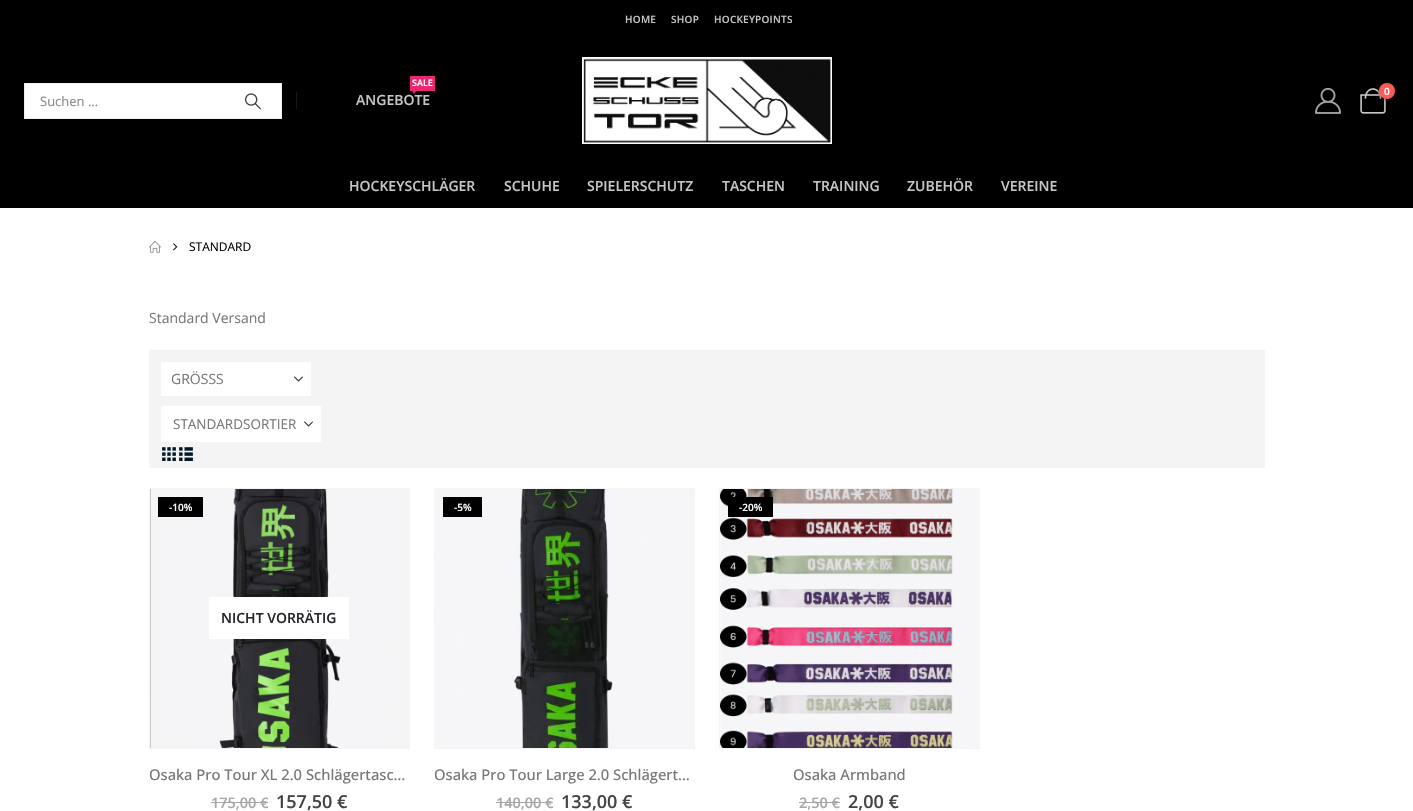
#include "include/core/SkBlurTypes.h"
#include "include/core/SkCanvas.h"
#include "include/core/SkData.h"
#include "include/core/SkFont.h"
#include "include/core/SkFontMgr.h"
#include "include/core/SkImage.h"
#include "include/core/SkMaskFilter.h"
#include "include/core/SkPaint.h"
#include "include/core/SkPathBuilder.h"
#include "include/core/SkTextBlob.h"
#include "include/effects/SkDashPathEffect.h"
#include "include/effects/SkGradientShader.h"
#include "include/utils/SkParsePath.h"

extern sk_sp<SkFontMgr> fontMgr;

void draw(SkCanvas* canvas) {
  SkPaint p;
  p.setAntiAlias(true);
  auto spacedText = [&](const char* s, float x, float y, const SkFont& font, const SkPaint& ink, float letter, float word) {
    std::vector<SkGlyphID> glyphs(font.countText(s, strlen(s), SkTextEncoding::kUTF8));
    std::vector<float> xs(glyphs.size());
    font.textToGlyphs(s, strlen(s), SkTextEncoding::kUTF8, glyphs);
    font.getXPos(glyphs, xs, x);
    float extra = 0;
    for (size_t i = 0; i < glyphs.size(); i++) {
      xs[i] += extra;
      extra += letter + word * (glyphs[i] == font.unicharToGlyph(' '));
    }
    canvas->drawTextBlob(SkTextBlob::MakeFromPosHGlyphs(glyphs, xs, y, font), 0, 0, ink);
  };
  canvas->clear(SK_ColorWHITE);
  p.setColor(SK_ColorBLACK);
  canvas->drawRect(SkRect::MakeLTRB(0, 0, 1413, 208), p);
  p.setColor(SK_ColorWHITE);
  canvas->drawRect(SkRect::MakeLTRB(24.5f, 83.5f, 281.5f, 118.5f), p);
  p.setStyle(SkPaint::kStroke_Style);
  p.setStrokeWidth(1);
  p.setColor(SkColorSetRGB(238, 238, 238));
  canvas->drawRect(SkRect::MakeLTRB(24.5f, 83.5f, 281.5f, 118.5f), p);
  canvas->drawImageRect(SkImages::DeferredFromEncodedData(SkData::MakeFromFileName("images/1.png")), SkRect::MakeLTRB(245, 93, 261, 110), SkSamplingOptions());
  p.setStyle(SkPaint::kFill_Style);
  p.setColor(SkColorSetRGB(23, 23, 23));
  canvas->drawRect(SkRect::MakeLTRB(296, 92, 297, 109), p);
  p.setColor(SkColorSetRGB(235, 39, 113));
  canvas->drawRect(SkRect::MakeLTRB(410, 76, 435, 91), p);
  canvas->drawPath(SkPathBuilder().moveTo(412, 91).lineTo(416, 91).lineTo(414, 94).close().detach(), p);
  canvas->drawImageRect(SkImages::DeferredFromEncodedData(SkData::MakeFromFileName("images/2.png")), SkRect::MakeLTRB(582, 57, 832, 144), SkSamplingOptions());
  canvas->drawImageRect(SkImages::DeferredFromEncodedData(SkData::MakeFromFileName("images/3.png")), SkRect::MakeLTRB(1315, 87, 1341, 114), SkSamplingOptions());
  canvas->drawImageRect(SkImages::DeferredFromEncodedData(SkData::MakeFromFileName("images/4.png")), SkRect::MakeLTRB(1360, 88, 1386, 114), SkSamplingOptions());
  p.setColor(SkColorSetARGB(77, 0, 0, 0));
  p.setMaskFilter(SkMaskFilter::MakeBlur(kNormal_SkBlurStyle, 1));
  canvas->drawRoundRect(SkRect::MakeLTRB(1378, 84, 1394, 100), 8, 8, p);
  p.setMaskFilter(nullptr);
  p.setColor(SkColorSetRGB(255, 91, 91));
  canvas->drawCircle(1387, 91, 8, p);
  canvas->drawImageRect(SkImages::DeferredFromEncodedData(SkData::MakeFromFileName("images/5.png")), SkRect::MakeLTRB(149, 241, 161, 253), SkSamplingOptions());
  canvas->drawImageRect(SkImages::DeferredFromEncodedData(SkData::MakeFromFileName("images/6.png")), SkRect::MakeLTRB(173, 243, 178, 251), SkSamplingOptions());
  p.setColor(SkColorSetRGB(244, 244, 244));
  canvas->drawRect(SkRect::MakeLTRB(149, 350, 1265, 468), p);
  p.setColor(SK_ColorWHITE);
  canvas->drawRect(SkRect::MakeLTRB(161, 362, 311, 396), p);
  canvas->drawImageRect(SkImages::DeferredFromEncodedData(SkData::MakeFromFileName("images/7.png")), SkRect::MakeLTRB(294, 376, 303, 382), SkSamplingOptions());
  canvas->drawRect(SkRect::MakeLTRB(161, 406, 321, 442), p);
  canvas->drawImageRect(SkImages::DeferredFromEncodedData(SkData::MakeFromFileName("images/7.png")), SkRect::MakeLTRB(304, 421, 313, 427), SkSamplingOptions());
  canvas->drawImageRect(SkImages::DeferredFromEncodedData(SkData::MakeFromFileName("images/8.png")), SkRect::MakeLTRB(162, 447, 176, 461), SkSamplingOptions());
  canvas->drawImageRect(SkImages::DeferredFromEncodedData(SkData::MakeFromFileName("images/9.png")), SkRect::MakeLTRB(179, 447, 193, 461), SkSamplingOptions());
  p.setStyle(SkPaint::kStroke_Style);
  p.setColor(SkColorSetRGB(244, 244, 244));
  canvas->drawRect(SkRect::MakeLTRB(149.5f, 488.5f, 409.5f, 748.5f), p);
  canvas->drawImageRect(SkImages::DeferredFromEncodedData(SkData::MakeFromFileName("images/10.png")), SkRect::MakeLTRB(150, 489, 409, 748), SkSamplingOptions());
  p.setStyle(SkPaint::kFill_Style);
  p.setColor(SK_ColorBLACK);
  canvas->drawRect(SkRect::MakeLTRB(158, 497, 203, 517), p);
  p.setColor(SK_ColorWHITE);
  canvas->drawRect(SkRect::MakeLTRB(209, 597, 349, 639), p);
  p.setColor(SkColorSetRGB(167, 167, 167));
  canvas->drawRect(SkRect::MakeLTRB(211, 802, 268, 803), p);
  p.setStyle(SkPaint::kStroke_Style);
  p.setColor(SkColorSetRGB(244, 244, 244));
  canvas->drawRect(SkRect::MakeLTRB(434.5f, 488.5f, 694.5f, 748.5f), p);
  canvas->drawImageRect(SkImages::DeferredFromEncodedData(SkData::MakeFromFileName("images/11.png")), SkRect::MakeLTRB(435, 489, 694, 748), SkSamplingOptions());
  p.setStyle(SkPaint::kFill_Style);
  p.setColor(SK_ColorBLACK);
  canvas->drawRect(SkRect::MakeLTRB(443, 497, 482, 517), p);
  p.setColor(SkColorSetRGB(167, 167, 167));
  canvas->drawRect(SkRect::MakeLTRB(496, 802, 553, 803), p);
  p.setStyle(SkPaint::kStroke_Style);
  p.setColor(SkColorSetRGB(244, 244, 244));
  canvas->drawRect(SkRect::MakeLTRB(719.5f, 488.5f, 979.5f, 748.5f), p);
  canvas->drawImageRect(SkImages::DeferredFromEncodedData(SkData::MakeFromFileName("images/12.png")), SkRect::MakeLTRB(720, 489, 979, 748), SkSamplingOptions());
  p.setStyle(SkPaint::kFill_Style);
  p.setColor(SK_ColorBLACK);
  canvas->drawRect(SkRect::MakeLTRB(728, 497, 773, 517), p);
  p.setColor(SkColorSetRGB(167, 167, 167));
  canvas->drawRect(SkRect::MakeLTRB(799, 802, 840, 803), p);
  SkFont font1(fontMgr->matchFamilyStyle("Open Sans", SkFontStyle(600, SkFontStyle::kNormal_Width, SkFontStyle::kUpright_Slant)), 10);
  font1.setSubpixel(true);
  p.setColor(SkColorSetRGB(198, 198, 198));
  spacedText("HOME", 625, 23, font1, p, 0.25f, 0);
  spacedText("SHOP", 671, 23, font1, p, 0.25f, 0);
  spacedText("HOCKEYPOINTS", 714, 23, font1, p, 0.25f, 0);
  SkFont font2(fontMgr->matchFamilyStyle("Open Sans", SkFontStyle::Normal()), 13);
  font2.setSubpixel(true);
  p.setColor(SkColorSetRGB(136, 136, 136));
  canvas->drawString("Suchen ...", 40, 106, font2, p);
  SkFont font3(fontMgr->matchFamilyStyle("Open Sans", SkFontStyle(600, SkFontStyle::kNormal_Width, SkFontStyle::kUpright_Slant)), 9);
  font3.setSubpixel(true);
  p.setColor(SK_ColorWHITE);
  canvas->drawString("SALE", 412, 86, font3, p);
  SkFont font4(fontMgr->matchFamilyStyle("Open Sans", SkFontStyle(600, SkFontStyle::kNormal_Width, SkFontStyle::kUpright_Slant)), 14);
  font4.setSubpixel(true);
  p.setColor(SkColorSetRGB(198, 198, 198));
  canvas->drawString("ANGEBOTE", 356, 105, font4, p);
  p.setColor(SK_ColorWHITE);
  canvas->drawString("0", 1384, 95, font1, p);
  p.setColor(SkColorSetRGB(198, 198, 198));
  canvas->drawString("HOCKEYSCHLÄGER", 349, 191, font4, p);
  canvas->drawString("SCHUHE", 504, 191, font4, p);
  canvas->drawString("SPIELERSCHUTZ", 587, 191, font4, p);
  canvas->drawString("TASCHEN", 722, 191, font4, p);
  canvas->drawString("TRAINING", 813, 191, font4, p);
  canvas->drawString("ZUBEHÖR", 907, 191, font4, p);
  canvas->drawString("VEREINE", 1001, 191, font4, p);
  SkFont font5(fontMgr->matchFamilyStyle("Open Sans", SkFontStyle::Normal()), 12);
  font5.setSubpixel(true);
  p.setColor(SK_ColorBLACK);
  canvas->drawString("STANDARD", 189, 251, font5, p);
  SkFont font6(fontMgr->matchFamilyStyle("Open Sans", SkFontStyle::Normal()), 14);
  font6.setSubpixel(true);
  p.setColor(SkColorSetRGB(119, 119, 119));
  canvas->drawString("Standard Versand", 149, 323, font6, p);
  canvas->drawString("GRÖSSS", 171, 384, font6, p);
  SkFont font7(fontMgr->matchFamilyStyle("Open Sans", SkFontStyle::Normal()), 13.5f);
  font7.setSubpixel(true);
  canvas->drawString("STANDARDSORTIER", 173, 429, font7, p);
  p.setColor(SK_ColorWHITE);
  canvas->drawString("-10%", 169, 511, font1, p);
  p.setColor(SkColorSetRGB(34, 37, 41));
  canvas->drawString("NICHT VORRÄTIG", 221, 623, font4, p);
  SkFont font8(fontMgr->matchFamilyStyle("Open Sans", SkFontStyle(500, SkFontStyle::kNormal_Width, SkFontStyle::kUpright_Slant)), 14.75f);
  font8.setSubpixel(true);
  p.setColor(SkColorSetRGB(119, 119, 119));
  canvas->drawString("Osaka Pro Tour XL 2.0 Schlägertasc…", 149, 780, font8, p);
  SkFont font9(fontMgr->matchFamilyStyle("Open Sans", SkFontStyle(600, SkFontStyle::kNormal_Width, SkFontStyle::kUpright_Slant)), 14.5f);
  font9.setSubpixel(true);
  p.setColor(SkColorSetRGB(167, 167, 167));
  canvas->drawString("175,00 €", 211, 808, font9, p);
  SkFont font10(fontMgr->matchFamilyStyle("Open Sans", SkFontStyle(600, SkFontStyle::kNormal_Width, SkFontStyle::kUpright_Slant)), 18);
  font10.setSubpixel(true);
  p.setColor(SkColorSetRGB(68, 68, 68));
  canvas->drawString("157,50 €", 276, 808, font10, p);
  p.setColor(SK_ColorWHITE);
  canvas->drawString("-5%", 454, 511, font1, p);
  p.setColor(SkColorSetRGB(119, 119, 119));
  canvas->drawString("Osaka Pro Tour Large 2.0 Schlägert…", 434, 780, font8, p);
  p.setColor(SkColorSetRGB(167, 167, 167));
  canvas->drawString("140,00 €", 496, 808, font9, p);
  p.setColor(SkColorSetRGB(68, 68, 68));
  canvas->drawString("133,00 €", 561, 808, font10, p);
  p.setColor(SK_ColorWHITE);
  canvas->drawString("-20%", 739, 511, font1, p);
  p.setColor(SkColorSetRGB(119, 119, 119));
  canvas->drawString("Osaka Armband", 793, 780, font8, p);
  p.setColor(SkColorSetRGB(167, 167, 167));
  canvas->drawString("2,50 €", 799, 808, font9, p);
  p.setColor(SkColorSetRGB(68, 68, 68));
  canvas->drawString("2,00 €", 848, 808, font10, p);
}
